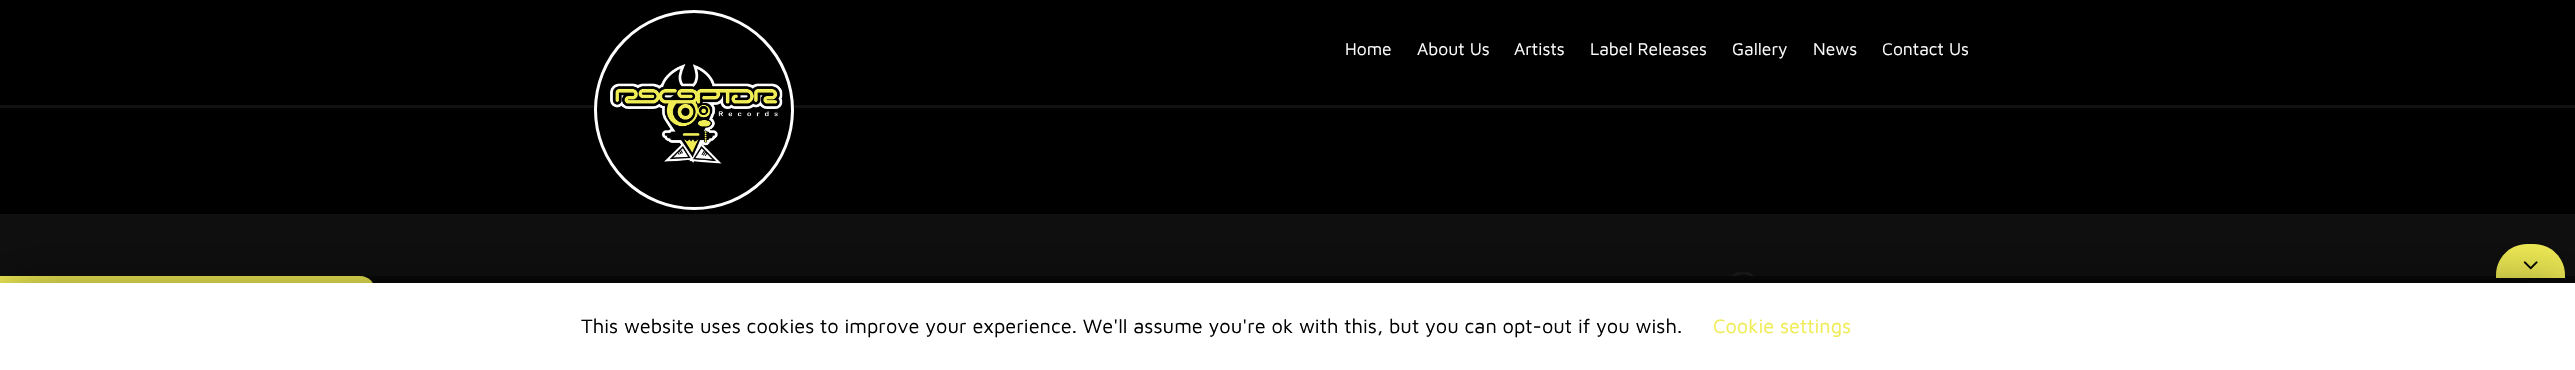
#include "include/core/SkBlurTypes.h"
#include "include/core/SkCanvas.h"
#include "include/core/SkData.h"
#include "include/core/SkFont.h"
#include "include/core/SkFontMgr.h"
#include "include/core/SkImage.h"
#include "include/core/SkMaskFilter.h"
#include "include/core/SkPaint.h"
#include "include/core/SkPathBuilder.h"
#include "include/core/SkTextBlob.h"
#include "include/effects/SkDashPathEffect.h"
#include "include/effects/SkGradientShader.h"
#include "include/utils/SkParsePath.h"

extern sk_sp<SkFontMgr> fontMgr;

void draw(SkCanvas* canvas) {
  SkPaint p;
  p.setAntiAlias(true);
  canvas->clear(SK_ColorBLACK);
  p.setColor(SkColorSetRGB(17, 17, 17));
  canvas->drawRect(SkRect::MakeLTRB(0, 105, 2575, 108), p);
  p.setColor(SK_ColorBLACK);
  canvas->drawCircle(694, 110, 98.5f, p);
  p.setStyle(SkPaint::kStroke_Style);
  p.setStrokeWidth(3);
  p.setColor(SK_ColorWHITE);
  canvas->drawCircle(694, 110, 98.5f, p);
  canvas->drawImageRect(SkImages::DeferredFromEncodedData(SkData::MakeFromFileName("images/1.png")), SkRect::MakeLTRB(610, 64, 783, 164), SkSamplingOptions());
  p.setStyle(SkPaint::kFill_Style);
  p.setColor(SkColorSetRGB(15, 15, 15));
  canvas->drawRect(SkRect::MakeLTRB(0, 214, 2575, 276), p);
  canvas->drawImageRect(SkImages::DeferredFromEncodedData(SkData::MakeFromFileName("images/2.png")), SkRect::MakeLTRB(1731, 272, 1754, 276), SkSamplingOptions());
  p.setColor(SkColorSetRGB(8, 8, 8));
  canvas->drawRect(SkRect::MakeLTRB(360, 276, 2575, 283), p);
  p.setColor(SkColorSetRGB(240, 236, 85));
  canvas->drawPath(SkPathBuilder().moveTo(2527, 244).lineTo(2534, 244).cubicTo(2551, 244, 2565, 258, 2565, 275).lineTo(2565, 278).lineTo(2496, 278).lineTo(2496, 275).cubicTo(2496, 258, 2510, 244, 2527, 244).close().detach(), p);
  canvas->drawImageRect(SkImages::DeferredFromEncodedData(SkData::MakeFromFileName("images/3.png")), SkRect::MakeLTRB(2523, 261, 2538, 270), SkSamplingOptions());
  canvas->drawPath(SkPathBuilder().moveTo(0, 276).lineTo(360, 276).cubicTo(368.5f, 276, 375, 282.5f, 375, 291).lineTo(375, 355).cubicTo(375, 363.5f, 368.5f, 370, 360, 370).lineTo(0, 370).close().detach(), p);
  p.setColor(SkColorSetARGB(128, 0, 0, 0));
  p.setMaskFilter(SkMaskFilter::MakeBlur(kNormal_SkBlurStyle, 31));
  canvas->drawRect(SkRect::MakeLTRB(0, 289, 2575, 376), p);
  p.setMaskFilter(nullptr);
  p.setColor(SK_ColorWHITE);
  canvas->drawRect(SkRect::MakeLTRB(0, 283, 2575, 370), p);
  SkFont font1(fontMgr->matchFamilyStyle("Maven Pro", SkFontStyle::Normal()), 17.5f);
  font1.setSubpixel(true);
  canvas->drawString("Home", 1345, 55, font1, p);
  canvas->drawString("About Us", 1417, 55, font1, p);
  canvas->drawString("Artists", 1514, 55, font1, p);
  canvas->drawString("Label Releases", 1590, 55, font1, p);
  canvas->drawString("Gallery", 1732, 55, font1, p);
  canvas->drawString("News", 1813, 55, font1, p);
  canvas->drawString("Contact Us", 1882, 55, font1, p);
  SkFont font2(fontMgr->matchFamilyStyle("Maven Pro", SkFontStyle::Normal()), 20);
  font2.setSubpixel(true);
  p.setColor(SK_ColorBLACK);
  canvas->drawString("This website uses cookies to improve your experience. We'll assume you're ok with this, but you can opt-out if you wish.", 581, 333, font2, p);
  p.setColor(SkColorSetRGB(240, 236, 85));
  canvas->drawString("Cookie settings", 1713, 333, font2, p);
}
